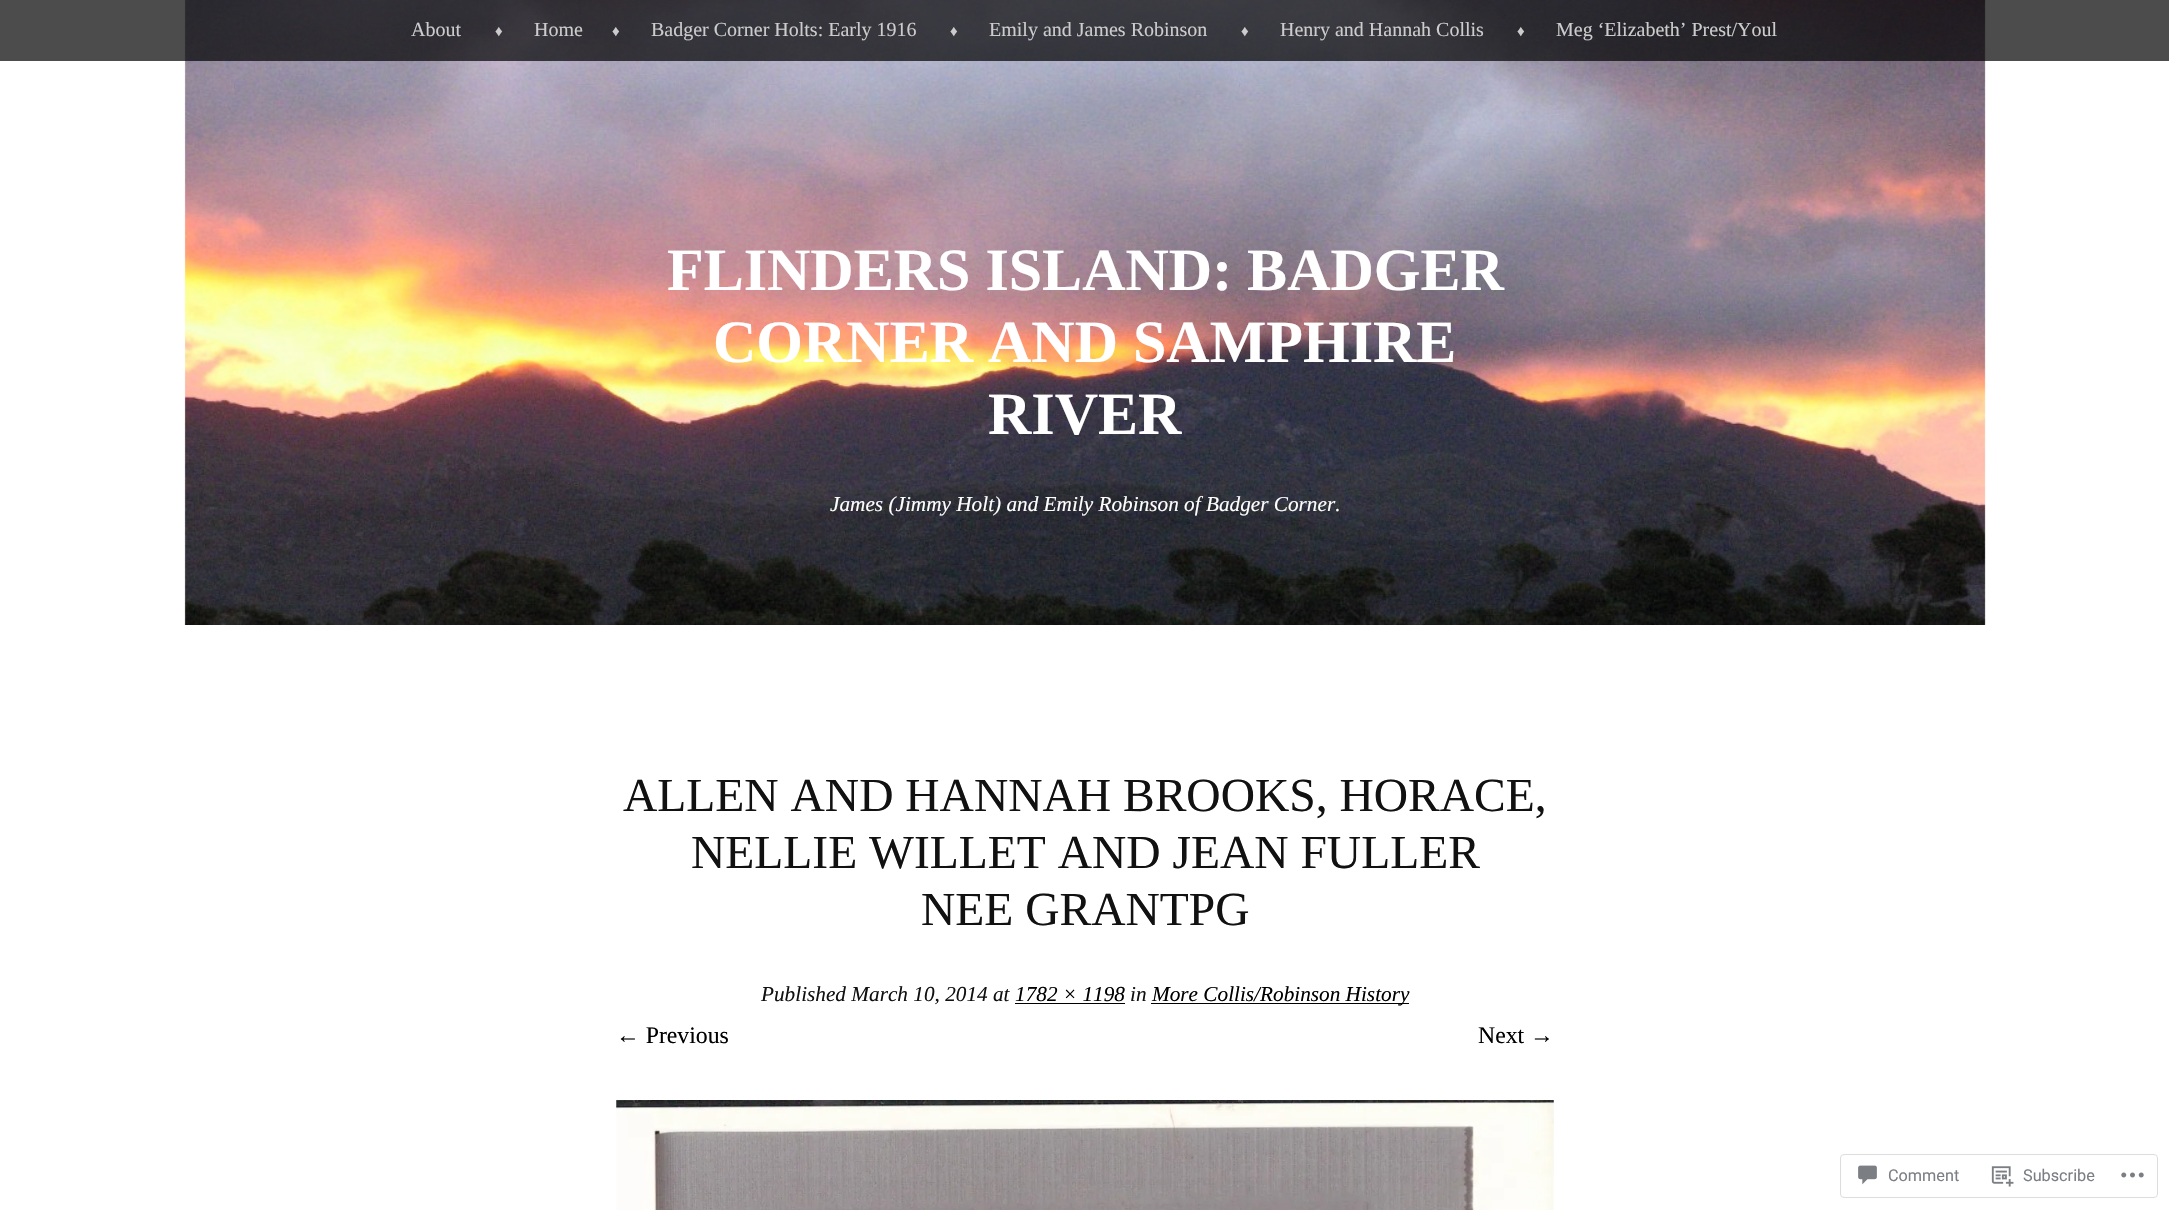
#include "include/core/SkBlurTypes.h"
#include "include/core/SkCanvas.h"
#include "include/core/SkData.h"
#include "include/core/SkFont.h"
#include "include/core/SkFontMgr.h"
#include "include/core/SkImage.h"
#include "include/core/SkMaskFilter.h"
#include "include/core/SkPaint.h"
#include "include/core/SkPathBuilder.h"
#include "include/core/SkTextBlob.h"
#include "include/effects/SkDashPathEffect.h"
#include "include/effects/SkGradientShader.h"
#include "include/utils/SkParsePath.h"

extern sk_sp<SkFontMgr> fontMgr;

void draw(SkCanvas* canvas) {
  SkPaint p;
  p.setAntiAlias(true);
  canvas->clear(SK_ColorWHITE);
  canvas->drawImageRect(SkImages::DeferredFromEncodedData(SkData::MakeFromFileName("images/1.png")), SkRect::MakeLTRB(184, 0, 1986, 625), SkSamplingOptions());
  p.setColor(SkColorSetARGB(179, 0, 0, 0));
  canvas->drawRect(SkRect::MakeLTRB(0, 0, 2169, 61), p);
  p.setColor(SK_ColorBLACK);
  canvas->drawRect(SkRect::MakeLTRB(1015, 1003, 1125, 1004), p);
  canvas->drawRect(SkRect::MakeLTRB(1151, 1003, 1409, 1004), p);
  canvas->drawImageRect(SkImages::DeferredFromEncodedData(SkData::MakeFromFileName("images/2.png")), SkRect::MakeLTRB(616, 1100, 1554, 1210), SkSamplingOptions());
  p.setStyle(SkPaint::kStroke_Style);
  p.setStrokeWidth(1);
  p.setColor(SkColorSetRGB(221, 221, 223));
  canvas->drawRoundRect(SkRect::MakeLTRB(1840.5f, 1154.5f, 2157.5f, 1197.5f), 3.5f, 3.5f, p);
  canvas->drawImageRect(SkImages::DeferredFromEncodedData(SkData::MakeFromFileName("images/3.png")), SkRect::MakeLTRB(1858, 1165, 1877, 1185), SkSamplingOptions());
  canvas->drawImageRect(SkImages::DeferredFromEncodedData(SkData::MakeFromFileName("images/4.png")), SkRect::MakeLTRB(1991, 1166, 2014, 1187), SkSamplingOptions());
  canvas->drawImageRect(SkImages::DeferredFromEncodedData(SkData::MakeFromFileName("images/5.png")), SkRect::MakeLTRB(2121, 1172, 2144, 1178), SkSamplingOptions());
  SkFont font1(fontMgr->matchFamilyStyle("Liberation Serif", SkFontStyle::Normal()), 20);
  font1.setSubpixel(true);
  p.setStyle(SkPaint::kFill_Style);
  p.setColor(SkColorSetRGB(204, 204, 204));
  canvas->drawString("About", 411, 36, font1, p);
  SkFont font2(fontMgr->matchFamilyStyle("Liberation Serif", SkFontStyle::Normal()), 15);
  font2.setSubpixel(true);
  canvas->drawString("♦", 495, 36, font2, p);
  canvas->drawString("Home", 534, 36, font1, p);
  canvas->drawString("♦", 612, 36, font2, p);
  canvas->drawString("Badger Corner Holts: Early 1916", 651, 36, font1, p);
  canvas->drawString("♦", 950, 36, font2, p);
  canvas->drawString("Emily and James Robinson", 989, 36, font1, p);
  canvas->drawString("♦", 1241, 36, font2, p);
  canvas->drawString("Henry and Hannah Collis", 1280, 36, font1, p);
  canvas->drawString("♦", 1517, 36, font2, p);
  canvas->drawString("Meg ‘Elizabeth’ Prest/Youl", 1556, 36, font1, p);
  SkFont font3(fontMgr->matchFamilyStyle("Liberation Serif", SkFontStyle::Bold()), 60);
  font3.setSubpixel(true);
  p.setColor(SK_ColorWHITE);
  canvas->drawString("FLINDERS ISLAND: BADGER", 667, 290, font3, p);
  canvas->drawString("CORNER AND SAMPHIRE", 713, 362, font3, p);
  canvas->drawString("RIVER", 988, 434, font3, p);
  SkFont font4(fontMgr->matchFamilyStyle("Liberation Serif", SkFontStyle::Italic()), 21.25f);
  font4.setSubpixel(true);
  canvas->drawString("James (Jimmy Holt) and Emily Robinson of Badger Corner.", 830, 511, font4, p);
  SkFont font5(fontMgr->matchFamilyStyle("Liberation Serif", SkFontStyle::Normal()), 47.5f);
  font5.setSubpixel(true);
  p.setColor(SkColorSetRGB(17, 17, 17));
  canvas->drawString("ALLEN AND HANNAH BROOKS, HORACE,", 623, 811, font5, p);
  canvas->drawString("NELLIE WILLET AND JEAN FULLER", 691, 868, font5, p);
  canvas->drawString("NEE GRANTPG", 921, 925, font5, p);
  canvas->drawString("Published March 10, 2014 at", 761, 1001, font4, p);
  p.setColor(SK_ColorBLACK);
  canvas->drawString("1782 × 1198", 1015, 1001, font4, p);
  p.setColor(SkColorSetRGB(17, 17, 17));
  canvas->drawString("in", 1130, 1001, font4, p);
  p.setColor(SK_ColorBLACK);
  canvas->drawString("More Collis/Robinson History", 1152, 1001, font4, p);
  SkFont font6(fontMgr->matchFamilyStyle("Liberation Serif", SkFontStyle::Normal()), 23.75f);
  font6.setSubpixel(true);
  canvas->drawString("← Previous", 616, 1043, font6, p);
  canvas->drawString("Next →", 1478, 1043, font6, p);
  SkFont font7(fontMgr->matchFamilyStyle("Roboto", SkFontStyle::Normal()), 16.25f);
  font7.setSubpixel(true);
  p.setColor(SkColorSetRGB(123, 127, 133));
  canvas->drawString("Comment", 1888, 1181, font7, p);
  canvas->drawString("Subscribe", 2023, 1181, font7, p);
}
